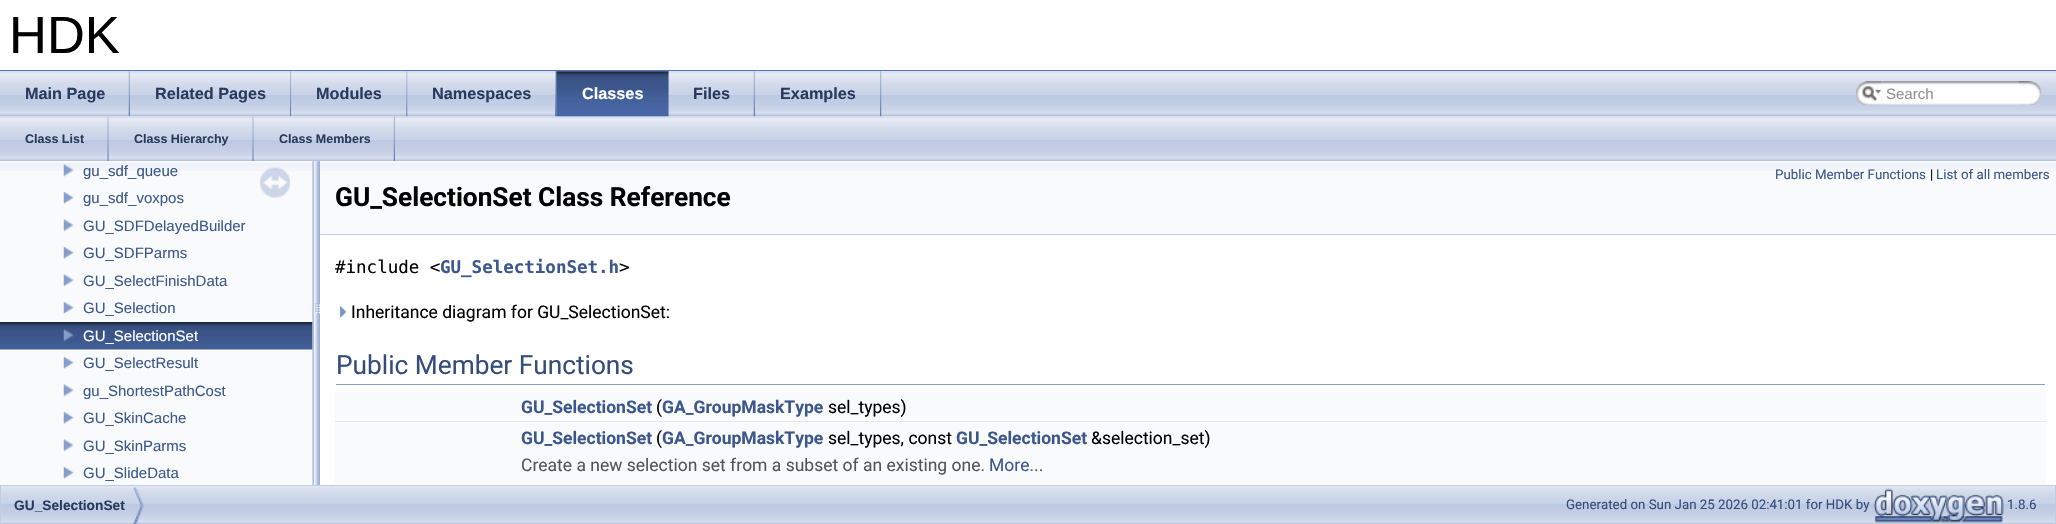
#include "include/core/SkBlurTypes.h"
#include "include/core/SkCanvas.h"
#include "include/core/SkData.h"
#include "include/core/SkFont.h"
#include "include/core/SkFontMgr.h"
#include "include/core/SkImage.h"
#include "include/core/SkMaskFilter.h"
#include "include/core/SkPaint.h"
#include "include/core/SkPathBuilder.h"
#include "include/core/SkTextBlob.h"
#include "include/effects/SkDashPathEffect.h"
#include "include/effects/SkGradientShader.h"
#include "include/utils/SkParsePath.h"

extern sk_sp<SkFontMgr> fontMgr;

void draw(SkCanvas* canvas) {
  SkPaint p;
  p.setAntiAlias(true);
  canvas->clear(SK_ColorWHITE);
  p.setColor(SkColorSetRGB(83, 115, 180));
  canvas->drawRect(SkRect::MakeLTRB(0, 70, 2056, 71), p);
  canvas->drawImageRect(SkImages::DeferredFromEncodedData(SkData::MakeFromFileName("images/1.png")), SkRect::MakeLTRB(0, 71, 2056, 117), SkSamplingOptions());
  canvas->drawImageRect(SkImages::DeferredFromEncodedData(SkData::MakeFromFileName("images/17.png")), SkRect::MakeLTRB(0, 116, 2056, 162), SkSamplingOptions());
  canvas->drawImageRect(SkImages::DeferredFromEncodedData(SkData::MakeFromFileName("images/2.png")), SkRect::MakeLTRB(0, 71, 130, 117), SkSamplingOptions());
  canvas->drawImageRect(SkImages::DeferredFromEncodedData(SkData::MakeFromFileName("images/3.png")), SkRect::MakeLTRB(128, 71, 130, 117), SkSamplingOptions());
  canvas->drawImageRect(SkImages::DeferredFromEncodedData(SkData::MakeFromFileName("images/4.png")), SkRect::MakeLTRB(130, 71, 291, 117), SkSamplingOptions());
  canvas->drawImageRect(SkImages::DeferredFromEncodedData(SkData::MakeFromFileName("images/5.png")), SkRect::MakeLTRB(290, 71, 292, 117), SkSamplingOptions());
  canvas->drawImageRect(SkImages::DeferredFromEncodedData(SkData::MakeFromFileName("images/6.png")), SkRect::MakeLTRB(291, 71, 408, 117), SkSamplingOptions());
  canvas->drawImageRect(SkImages::DeferredFromEncodedData(SkData::MakeFromFileName("images/7.png")), SkRect::MakeLTRB(406, 71, 408, 117), SkSamplingOptions());
  canvas->drawImageRect(SkImages::DeferredFromEncodedData(SkData::MakeFromFileName("images/8.png")), SkRect::MakeLTRB(407, 71, 556, 117), SkSamplingOptions());
  canvas->drawImageRect(SkImages::DeferredFromEncodedData(SkData::MakeFromFileName("images/5.png")), SkRect::MakeLTRB(555, 71, 557, 117), SkSamplingOptions());
  canvas->drawImageRect(SkImages::DeferredFromEncodedData(SkData::MakeFromFileName("images/9.png")), SkRect::MakeLTRB(556, 71, 669, 117), SkSamplingOptions());
  canvas->drawImageRect(SkImages::DeferredFromEncodedData(SkData::MakeFromFileName("images/10.png")), SkRect::MakeLTRB(556, 71, 669, 117), SkSamplingOptions());
  canvas->drawImageRect(SkImages::DeferredFromEncodedData(SkData::MakeFromFileName("images/11.png")), SkRect::MakeLTRB(668, 71, 755, 117), SkSamplingOptions());
  canvas->drawImageRect(SkImages::DeferredFromEncodedData(SkData::MakeFromFileName("images/3.png")), SkRect::MakeLTRB(753, 71, 755, 117), SkSamplingOptions());
  canvas->drawImageRect(SkImages::DeferredFromEncodedData(SkData::MakeFromFileName("images/12.png")), SkRect::MakeLTRB(755, 71, 881, 117), SkSamplingOptions());
  canvas->drawImageRect(SkImages::DeferredFromEncodedData(SkData::MakeFromFileName("images/5.png")), SkRect::MakeLTRB(880, 71, 882, 117), SkSamplingOptions());
  canvas->drawImageRect(SkImages::DeferredFromEncodedData(SkData::MakeFromFileName("images/13.png")), SkRect::MakeLTRB(1856, 81, 1882, 105), SkSamplingOptions());
  canvas->drawImageRect(SkImages::DeferredFromEncodedData(SkData::MakeFromFileName("images/14.png")), SkRect::MakeLTRB(1862, 86, 1882, 102), SkSamplingOptions());
  canvas->drawImageRect(SkImages::DeferredFromEncodedData(SkData::MakeFromFileName("images/15.png")), SkRect::MakeLTRB(1881, 81, 2028, 105), SkSamplingOptions());
  canvas->drawImageRect(SkImages::DeferredFromEncodedData(SkData::MakeFromFileName("images/16.png")), SkRect::MakeLTRB(2018, 81, 2042, 105), SkSamplingOptions());
  canvas->drawImageRect(SkImages::DeferredFromEncodedData(SkData::MakeFromFileName("images/18.png")), SkRect::MakeLTRB(107, 116, 109, 161), SkSamplingOptions());
  canvas->drawImageRect(SkImages::DeferredFromEncodedData(SkData::MakeFromFileName("images/19.png")), SkRect::MakeLTRB(108, 116, 254, 161), SkSamplingOptions());
  canvas->drawImageRect(SkImages::DeferredFromEncodedData(SkData::MakeFromFileName("images/20.png")), SkRect::MakeLTRB(252, 116, 254, 161), SkSamplingOptions());
  canvas->drawImageRect(SkImages::DeferredFromEncodedData(SkData::MakeFromFileName("images/21.png")), SkRect::MakeLTRB(253, 116, 395, 162), SkSamplingOptions());
  canvas->drawImageRect(SkImages::DeferredFromEncodedData(SkData::MakeFromFileName("images/22.png")), SkRect::MakeLTRB(393, 116, 395, 161), SkSamplingOptions());
  p.setColor(SkColorSetRGB(249, 250, 252));
  canvas->drawRect(SkRect::MakeLTRB(0, 161, 313, 485), p);
  canvas->drawImageRect(SkImages::DeferredFromEncodedData(SkData::MakeFromFileName("images/23.png")), SkRect::MakeLTRB(0, 161, 313, 171), SkSamplingOptions());
  canvas->drawImageRect(SkImages::DeferredFromEncodedData(SkData::MakeFromFileName("images/24.png")), SkRect::MakeLTRB(63, 164, 74, 177), SkSamplingOptions());
  canvas->drawImageRect(SkImages::DeferredFromEncodedData(SkData::MakeFromFileName("images/25.png")), SkRect::MakeLTRB(63, 191, 74, 204), SkSamplingOptions());
  canvas->drawImageRect(SkImages::DeferredFromEncodedData(SkData::MakeFromFileName("images/26.png")), SkRect::MakeLTRB(63, 219, 74, 232), SkSamplingOptions());
  canvas->drawImageRect(SkImages::DeferredFromEncodedData(SkData::MakeFromFileName("images/25.png")), SkRect::MakeLTRB(63, 246, 74, 259), SkSamplingOptions());
  canvas->drawImageRect(SkImages::DeferredFromEncodedData(SkData::MakeFromFileName("images/26.png")), SkRect::MakeLTRB(63, 274, 74, 287), SkSamplingOptions());
  canvas->drawImageRect(SkImages::DeferredFromEncodedData(SkData::MakeFromFileName("images/25.png")), SkRect::MakeLTRB(63, 301, 74, 314), SkSamplingOptions());
  canvas->drawImageRect(SkImages::DeferredFromEncodedData(SkData::MakeFromFileName("images/27.png")), SkRect::MakeLTRB(0, 322, 313, 350), SkSamplingOptions());
  canvas->drawImageRect(SkImages::DeferredFromEncodedData(SkData::MakeFromFileName("images/28.png")), SkRect::MakeLTRB(63, 329, 74, 342), SkSamplingOptions());
  canvas->drawImageRect(SkImages::DeferredFromEncodedData(SkData::MakeFromFileName("images/25.png")), SkRect::MakeLTRB(63, 356, 74, 369), SkSamplingOptions());
  canvas->drawImageRect(SkImages::DeferredFromEncodedData(SkData::MakeFromFileName("images/26.png")), SkRect::MakeLTRB(63, 384, 74, 397), SkSamplingOptions());
  canvas->drawImageRect(SkImages::DeferredFromEncodedData(SkData::MakeFromFileName("images/25.png")), SkRect::MakeLTRB(63, 411, 74, 424), SkSamplingOptions());
  canvas->drawImageRect(SkImages::DeferredFromEncodedData(SkData::MakeFromFileName("images/26.png")), SkRect::MakeLTRB(63, 439, 74, 452), SkSamplingOptions());
  canvas->drawImageRect(SkImages::DeferredFromEncodedData(SkData::MakeFromFileName("images/25.png")), SkRect::MakeLTRB(63, 466, 74, 479), SkSamplingOptions());
  canvas->drawImageRect(SkImages::DeferredFromEncodedData(SkData::MakeFromFileName("images/29.png")), SkRect::MakeLTRB(260, 167, 290, 198), SkSamplingOptions());
  canvas->drawImageRect(SkImages::DeferredFromEncodedData(SkData::MakeFromFileName("images/30.png")), SkRect::MakeLTRB(312, 161, 320, 485), SkSamplingOptions());
  canvas->drawRect(SkRect::MakeLTRB(320, 161, 2056, 234), p);
  canvas->drawImageRect(SkImages::DeferredFromEncodedData(SkData::MakeFromFileName("images/31.png")), SkRect::MakeLTRB(320, 163, 2056, 171), SkSamplingOptions());
  p.setColor(SkColorSetRGB(196, 207, 229));
  canvas->drawRect(SkRect::MakeLTRB(320, 234, 2056, 235), p);
  canvas->drawImageRect(SkImages::DeferredFromEncodedData(SkData::MakeFromFileName("images/32.png")), SkRect::MakeLTRB(339, 306, 347, 318), SkSamplingOptions());
  p.setColor(SkColorSetRGB(135, 158, 203));
  canvas->drawRect(SkRect::MakeLTRB(336, 384, 2045, 385), p);
  p.setColor(SkColorSetRGB(249, 250, 252));
  canvas->drawRect(SkRect::MakeLTRB(335, 391, 2046, 420), p);
  p.setColor(SkColorSetRGB(222, 228, 240));
  canvas->drawRect(SkRect::MakeLTRB(335, 421, 2046, 422), p);
  p.setColor(SkColorSetRGB(249, 250, 252));
  canvas->drawRect(SkRect::MakeLTRB(335, 423, 2046, 451), p);
  canvas->drawRect(SkRect::MakeLTRB(335, 451, 2046, 484), p);
  canvas->drawImageRect(SkImages::DeferredFromEncodedData(SkData::MakeFromFileName("images/33.png")), SkRect::MakeLTRB(1, 486, 2055, 524), SkSamplingOptions());
  p.setStyle(SkPaint::kStroke_Style);
  p.setStrokeWidth(1);
  p.setColor(SkColorSetRGB(194, 205, 228));
  canvas->drawRect(SkRect::MakeLTRB(0.5f, 485.5f, 2055.5f, 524.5f), p);
  canvas->drawImageRect(SkImages::DeferredFromEncodedData(SkData::MakeFromFileName("images/34.png")), SkRect::MakeLTRB(133, 487, 144, 524), SkSamplingOptions());
  canvas->drawImageRect(SkImages::DeferredFromEncodedData(SkData::MakeFromFileName("images/35.png")), SkRect::MakeLTRB(1873, 488, 2004, 523), SkSamplingOptions());
  SkFont font1(fontMgr->matchFamilyStyle("Liberation Sans", SkFontStyle::Normal()), 52.5f);
  font1.setSubpixel(true);
  p.setStyle(SkPaint::kFill_Style);
  p.setColor(SK_ColorBLACK);
  canvas->drawString("HDK", 9, 53, font1, p);
  SkFont font2(fontMgr->matchFamilyStyle("Liberation Sans", SkFontStyle::Bold()), 16.25f);
  font2.setSubpixel(true);
  p.setColor(SkColorSetRGB(40, 58, 93));
  canvas->drawString("Main Page", 25, 99, font2, p);
  canvas->drawString("Related Pages", 155, 99, font2, p);
  canvas->drawString("Modules", 316, 99, font2, p);
  canvas->drawString("Namespaces", 432, 99, font2, p);
  p.setColor(SK_ColorWHITE);
  canvas->drawString("Classes", 582, 99, font2, p);
  p.setColor(SkColorSetRGB(40, 58, 93));
  canvas->drawString("Files", 693, 99, font2, p);
  canvas->drawString("Examples", 780, 99, font2, p);
  SkFont font3(fontMgr->matchFamilyStyle("Liberation Sans", SkFontStyle::Normal()), 15);
  font3.setSubpixel(true);
  p.setColor(SkColorSetRGB(144, 144, 144));
  canvas->drawString("Search", 1886, 99, font3, p);
  SkFont font4(fontMgr->matchFamilyStyle("Liberation Sans", SkFontStyle::Bold()), 12.5f);
  font4.setSubpixel(true);
  p.setColor(SkColorSetRGB(40, 58, 93));
  canvas->drawString("Class List", 25, 143, font4, p);
  canvas->drawString("Class Hierarchy", 134, 143, font4, p);
  canvas->drawString("Class Members", 279, 143, font4, p);
  p.setColor(SkColorSetRGB(61, 87, 140));
  canvas->drawString("gu_sdf_queue", 83, 176, font3, p);
  canvas->drawString("gu_sdf_voxpos", 83, 203, font3, p);
  canvas->drawString("GU_SDFDelayedBuilder", 83, 231, font3, p);
  canvas->drawString("GU_SDFParms", 83, 258, font3, p);
  canvas->drawString("GU_SelectFinishData", 83, 286, font3, p);
  canvas->drawString("GU_Selection", 83, 313, font3, p);
  p.setColor(SK_ColorWHITE);
  canvas->drawString("GU_SelectionSet", 83, 341, font3, p);
  p.setColor(SkColorSetRGB(61, 87, 140));
  canvas->drawString("GU_SelectResult", 83, 368, font3, p);
  canvas->drawString("gu_ShortestPathCost", 83, 396, font3, p);
  canvas->drawString("GU_SkinCache", 83, 423, font3, p);
  canvas->drawString("GU_SkinParms", 83, 451, font3, p);
  canvas->drawString("GU_SlideData", 83, 478, font3, p);
  SkFont font5(fontMgr->matchFamilyStyle("Roboto", SkFontStyle::Normal()), 13.3f);
  font5.setSubpixel(true);
  canvas->drawString("Public Member Functions", 1775, 179, font5, p);
  p.setColor(SK_ColorBLACK);
  canvas->drawString("|", 1930, 179, font5, p);
  p.setColor(SkColorSetRGB(61, 87, 140));
  canvas->drawString("List of all members", 1936, 179, font5, p);
  SkFont font6(fontMgr->matchFamilyStyle("Roboto", SkFontStyle::Bold()), 26.25f);
  font6.setSubpixel(true);
  p.setColor(SK_ColorBLACK);
  canvas->drawString("GU_SelectionSet Class Reference", 335, 206, font6, p);
  SkFont font7(fontMgr->matchFamilyStyle("DejaVu Sans Mono", SkFontStyle::Normal()), 17.5f);
  font7.setSubpixel(true);
  canvas->drawString("#include <", 335, 273, font7, p);
  SkFont font8(fontMgr->matchFamilyStyle("DejaVu Sans Mono", SkFontStyle::Bold()), 17.5f);
  font8.setSubpixel(true);
  p.setColor(SkColorSetRGB(61, 87, 140));
  canvas->drawString("GU_SelectionSet.h", 440, 273, font8, p);
  p.setColor(SK_ColorBLACK);
  canvas->drawString(">", 619, 273, font7, p);
  SkFont font9(fontMgr->matchFamilyStyle("Roboto", SkFontStyle::Normal()), 17.5f);
  font9.setSubpixel(true);
  canvas->drawString("Inheritance diagram for GU_SelectionSet:", 351, 318, font9, p);
  SkFont font10(fontMgr->matchFamilyStyle("Roboto", SkFontStyle::Normal()), 26.25f);
  font10.setSubpixel(true);
  p.setColor(SkColorSetRGB(53, 76, 123));
  canvas->drawString("Public Member Functions", 336, 374, font10, p);
  SkFont font11(fontMgr->matchFamilyStyle("Roboto", SkFontStyle::Bold()), 17.5f);
  font11.setSubpixel(true);
  p.setColor(SkColorSetRGB(61, 87, 140));
  canvas->drawString("GU_SelectionSet", 521, 413, font11, p);
  p.setColor(SK_ColorBLACK);
  canvas->drawString("(", 656, 413, font9, p);
  p.setColor(SkColorSetRGB(61, 87, 140));
  canvas->drawString("GA_GroupMaskType", 662, 413, font11, p);
  p.setColor(SK_ColorBLACK);
  canvas->drawString("sel_types)", 828, 413, font9, p);
  p.setColor(SkColorSetRGB(61, 87, 140));
  canvas->drawString("GU_SelectionSet", 521, 444, font11, p);
  p.setColor(SK_ColorBLACK);
  canvas->drawString("(", 656, 444, font9, p);
  p.setColor(SkColorSetRGB(61, 87, 140));
  canvas->drawString("GA_GroupMaskType", 662, 444, font11, p);
  p.setColor(SK_ColorBLACK);
  canvas->drawString("sel_types, const", 828, 444, font9, p);
  p.setColor(SkColorSetRGB(61, 87, 140));
  canvas->drawString("GU_SelectionSet", 956, 444, font11, p);
  p.setColor(SK_ColorBLACK);
  canvas->drawString("&selection_set)", 1091, 444, font9, p);
  p.setColor(SkColorSetRGB(85, 85, 85));
  canvas->drawString("Create a new selection set from a subset of an existing one.", 521, 471, font9, p);
  p.setColor(SkColorSetRGB(61, 87, 140));
  canvas->drawString("More...", 989, 471, font9, p);
  SkFont font12(fontMgr->matchFamilyStyle("Liberation Sans", SkFontStyle::Bold()), 13.75f);
  font12.setSubpixel(true);
  p.setColor(SkColorSetRGB(40, 58, 93));
  canvas->drawString("GU_SelectionSet", 14, 510, font12, p);
  p.setColor(SkColorSetRGB(53, 76, 123));
  canvas->drawString("Generated on Sun Jan 25 2026 02:41:01 for HDK by", 1566, 509, font5, p);
  canvas->drawString("1.8.6", 2007, 509, font5, p);
}
